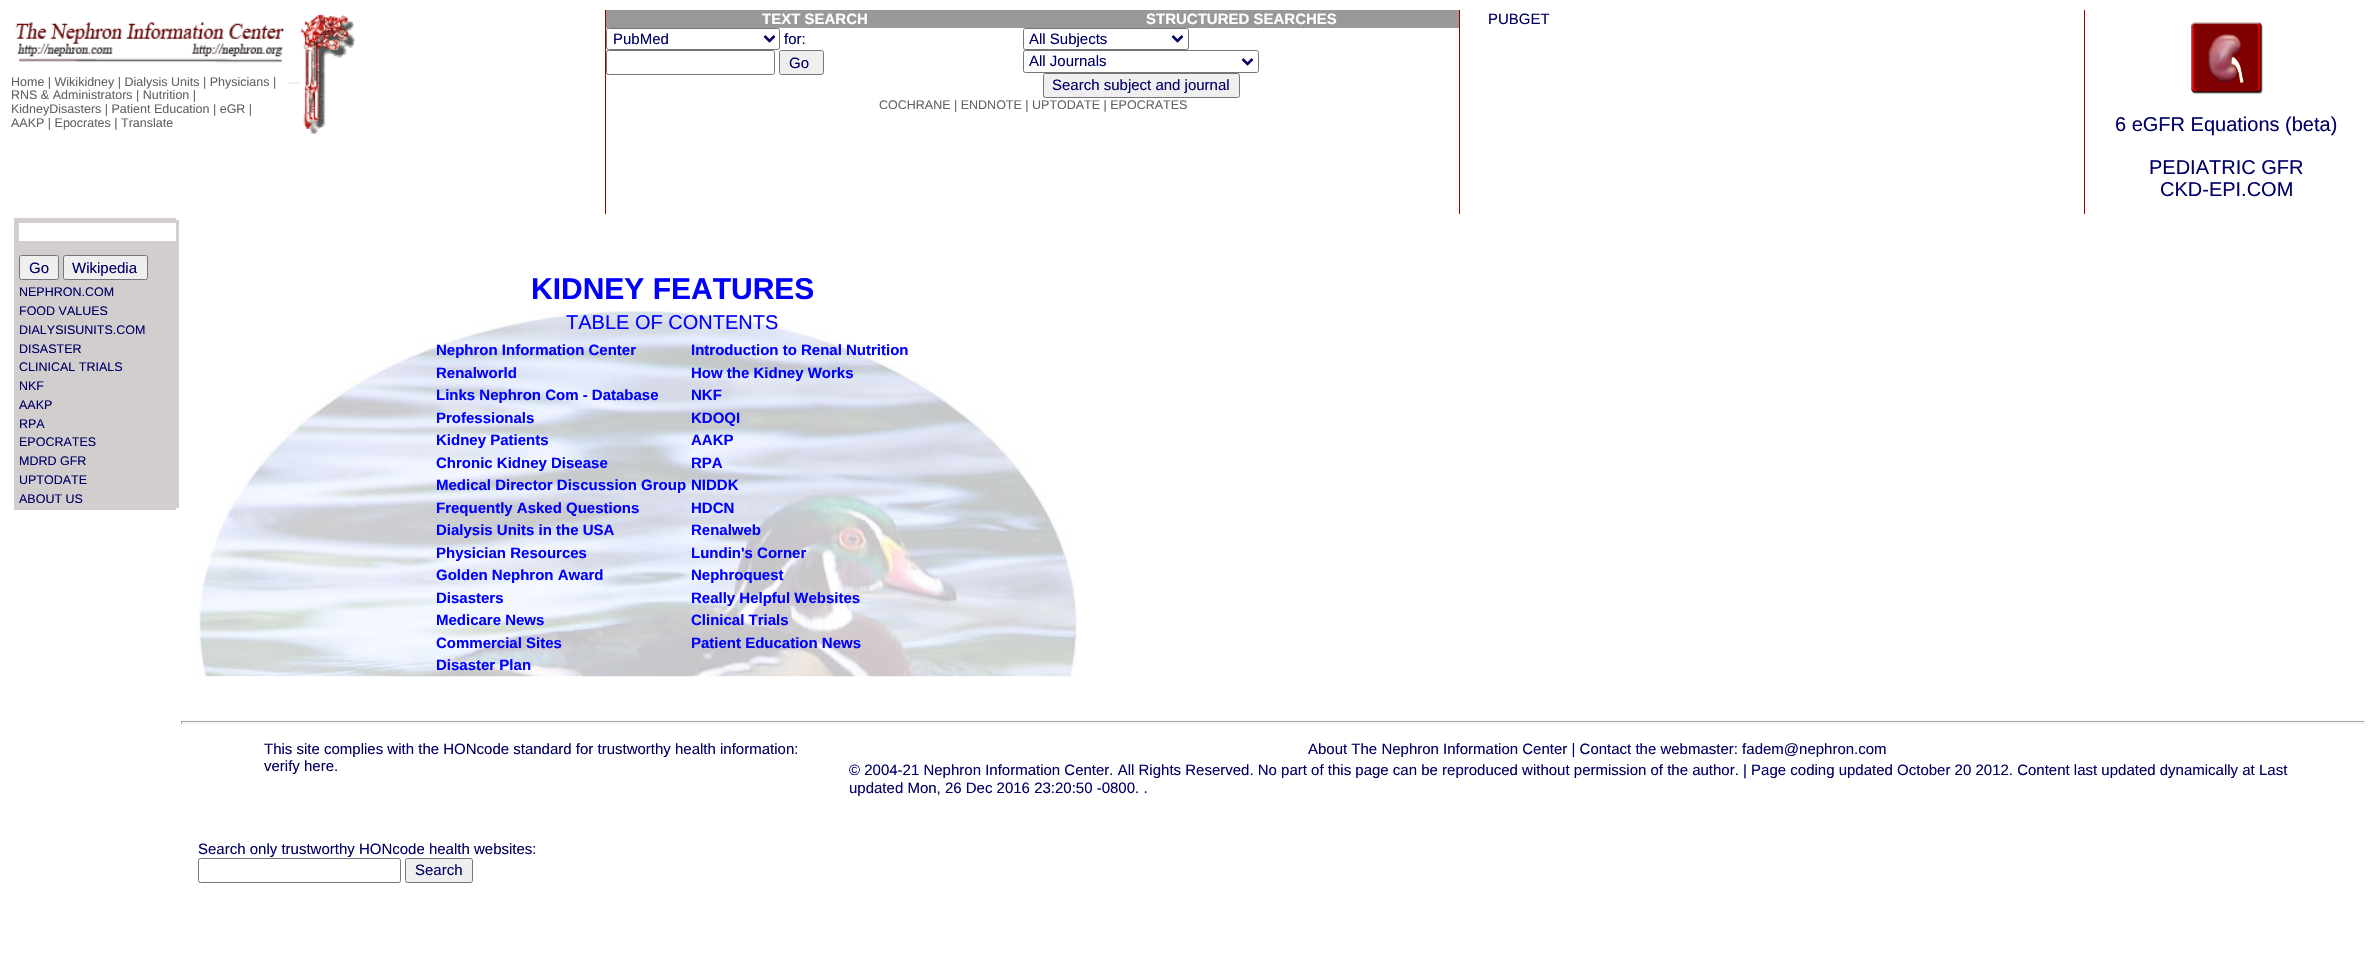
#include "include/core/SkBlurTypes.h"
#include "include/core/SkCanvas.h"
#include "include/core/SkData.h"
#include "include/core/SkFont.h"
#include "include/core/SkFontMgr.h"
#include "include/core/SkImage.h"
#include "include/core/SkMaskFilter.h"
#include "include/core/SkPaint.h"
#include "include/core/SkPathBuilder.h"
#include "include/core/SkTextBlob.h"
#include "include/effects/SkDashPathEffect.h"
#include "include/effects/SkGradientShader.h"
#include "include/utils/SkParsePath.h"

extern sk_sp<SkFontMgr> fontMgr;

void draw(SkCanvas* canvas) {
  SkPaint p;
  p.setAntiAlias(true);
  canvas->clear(SK_ColorWHITE);
  p.setColor(SkColorSetRGB(152, 0, 0));
  canvas->drawRect(SkRect::MakeLTRB(605, 10, 606, 214), p);
  p.setColor(SkColorSetRGB(153, 153, 153));
  canvas->drawRect(SkRect::MakeLTRB(606, 10, 1459, 28), p);
  p.setStyle(SkPaint::kStroke_Style);
  p.setStrokeWidth(1);
  p.setColor(SkColorSetRGB(118, 118, 118));
  canvas->drawRoundRect(SkRect::MakeLTRB(606.5f, 28.5f, 779.5f, 49.5f), 2, 2, p);
  p.setStrokeWidth(2.5f);
  p.setColor(SkColorSetRGB(0, 0, 102));
  canvas->drawPath(SkPathBuilder().moveTo(764.5f, 36).lineTo(769.5f, 41).lineTo(774.5f, 36).detach(), p);
  p.setStrokeWidth(1);
  p.setColor(SkColorSetRGB(118, 118, 118));
  canvas->drawRoundRect(SkRect::MakeLTRB(606.5f, 50.5f, 774.5f, 74.5f), 2, 2, p);
  p.setStyle(SkPaint::kFill_Style);
  p.setColor(SkColorSetRGB(239, 239, 239));
  canvas->drawRoundRect(SkRect::MakeLTRB(779.5f, 50.5f, 823.5f, 74.5f), 2, 2, p);
  p.setStyle(SkPaint::kStroke_Style);
  p.setColor(SkColorSetRGB(118, 118, 118));
  canvas->drawRoundRect(SkRect::MakeLTRB(779.5f, 50.5f, 823.5f, 74.5f), 2, 2, p);
  canvas->drawRoundRect(SkRect::MakeLTRB(1023.5f, 28.5f, 1188.5f, 49.5f), 2, 2, p);
  p.setStrokeWidth(2.5f);
  p.setColor(SkColorSetRGB(0, 0, 102));
  canvas->drawPath(SkPathBuilder().moveTo(1172.5f, 36).lineTo(1177.5f, 41).lineTo(1182.5f, 36).detach(), p);
  p.setStrokeWidth(1);
  p.setColor(SkColorSetRGB(118, 118, 118));
  canvas->drawRoundRect(SkRect::MakeLTRB(1023.5f, 50.5f, 1258.5f, 72.5f), 2, 2, p);
  p.setStrokeWidth(2.5f);
  p.setColor(SkColorSetRGB(0, 0, 102));
  canvas->drawPath(SkPathBuilder().moveTo(1242.5f, 59).lineTo(1247.5f, 64).lineTo(1252.5f, 59).detach(), p);
  p.setStyle(SkPaint::kFill_Style);
  p.setColor(SkColorSetRGB(239, 239, 239));
  canvas->drawRoundRect(SkRect::MakeLTRB(1043.5f, 73.5f, 1239.5f, 97.5f), 2, 2, p);
  p.setStyle(SkPaint::kStroke_Style);
  p.setStrokeWidth(1);
  p.setColor(SkColorSetRGB(118, 118, 118));
  canvas->drawRoundRect(SkRect::MakeLTRB(1043.5f, 73.5f, 1239.5f, 97.5f), 2, 2, p);
  p.setStyle(SkPaint::kFill_Style);
  p.setColor(SkColorSetRGB(152, 0, 0));
  canvas->drawRect(SkRect::MakeLTRB(1459, 10, 1460, 214), p);
  canvas->drawRect(SkRect::MakeLTRB(2084, 10, 2085, 214), p);
  canvas->drawImageRect(SkImages::DeferredFromEncodedData(SkData::MakeFromFileName("images/1.png")), SkRect::MakeLTRB(15, 22, 285, 63), SkSamplingOptions());
  canvas->drawImageRect(SkImages::DeferredFromEncodedData(SkData::MakeFromFileName("images/2.png")), SkRect::MakeLTRB(288, 14, 355, 134), SkSamplingOptions());
  canvas->drawImageRect(SkImages::DeferredFromEncodedData(SkData::MakeFromFileName("images/3.png")), SkRect::MakeLTRB(2191, 22, 2263, 94), SkSamplingOptions());
  p.setColor(SkColorSetRGB(211, 206, 206));
  canvas->drawRect(SkRect::MakeLTRB(14, 218, 176, 510), p);
  canvas->drawRect(SkRect::MakeLTRB(176, 220, 179, 508), p);
  p.setColor(SK_ColorWHITE);
  canvas->drawRect(SkRect::MakeLTRB(19, 223, 176, 241), p);
  p.setColor(SkColorSetRGB(239, 239, 239));
  canvas->drawRoundRect(SkRect::MakeLTRB(19.5f, 255.5f, 58.5f, 279.5f), 2, 2, p);
  p.setStyle(SkPaint::kStroke_Style);
  p.setColor(SkColorSetRGB(118, 118, 118));
  canvas->drawRoundRect(SkRect::MakeLTRB(19.5f, 255.5f, 58.5f, 279.5f), 2, 2, p);
  p.setStyle(SkPaint::kFill_Style);
  p.setColor(SkColorSetRGB(239, 239, 239));
  canvas->drawRoundRect(SkRect::MakeLTRB(63.5f, 255.5f, 147.5f, 279.5f), 2, 2, p);
  p.setStyle(SkPaint::kStroke_Style);
  p.setColor(SkColorSetRGB(118, 118, 118));
  canvas->drawRoundRect(SkRect::MakeLTRB(63.5f, 255.5f, 147.5f, 279.5f), 2, 2, p);
  canvas->drawImageRect(SkImages::DeferredFromEncodedData(SkData::MakeFromFileName("images/4.png")), SkRect::MakeLTRB(197, 311, 1078, 677), SkSamplingOptions());
  p.setStyle(SkPaint::kFill_Style);
  p.setColor(SkColorSetRGB(159, 159, 159));
  canvas->drawRect(SkRect::MakeLTRB(181, 721, 2365, 722), p);
  p.setColor(SkColorSetRGB(238, 238, 238));
  canvas->drawRect(SkRect::MakeLTRB(2364, 721, 2365, 724), p);
  canvas->drawRect(SkRect::MakeLTRB(181, 723, 2365, 724), p);
  p.setColor(SkColorSetRGB(159, 159, 159));
  canvas->drawRect(SkRect::MakeLTRB(181, 721, 182, 724), p);
  p.setStyle(SkPaint::kStroke_Style);
  p.setColor(SkColorSetRGB(118, 118, 118));
  canvas->drawRoundRect(SkRect::MakeLTRB(198.5f, 858.5f, 400.5f, 882.5f), 2, 2, p);
  p.setStyle(SkPaint::kFill_Style);
  p.setColor(SkColorSetRGB(239, 239, 239));
  canvas->drawRoundRect(SkRect::MakeLTRB(405.5f, 858.5f, 472.5f, 882.5f), 2, 2, p);
  p.setStyle(SkPaint::kStroke_Style);
  p.setColor(SkColorSetRGB(118, 118, 118));
  canvas->drawRoundRect(SkRect::MakeLTRB(405.5f, 858.5f, 472.5f, 882.5f), 2, 2, p);
  SkFont font1(fontMgr->matchFamilyStyle("Liberation Sans", SkFontStyle::Bold()), 15);
  font1.setSubpixel(true);
  p.setStyle(SkPaint::kFill_Style);
  p.setColor(SK_ColorWHITE);
  canvas->drawString("TEXT SEARCH", 762, 24, font1, p);
  canvas->drawString("STRUCTURED SEARCHES", 1146, 24, font1, p);
  SkFont font2(fontMgr->matchFamilyStyle("Liberation Sans", SkFontStyle::Normal()), 15);
  font2.setSubpixel(true);
  p.setColor(SkColorSetRGB(0, 0, 102));
  canvas->drawString("PubMed", 613, 44, font2, p);
  canvas->drawString("for:", 784, 44, font2, p);
  canvas->drawString("Go", 789, 68, font2, p);
  canvas->drawString("All Subjects", 1029, 44, font2, p);
  canvas->drawString("All Journals", 1029, 66, font2, p);
  canvas->drawString("Search subject and journal", 1052, 90, font2, p);
  SkFont font3(fontMgr->matchFamilyStyle("Liberation Sans", SkFontStyle::Normal()), 12.5f);
  font3.setSubpixel(true);
  p.setColor(SkColorSetRGB(99, 99, 99));
  canvas->drawString("COCHRANE | ENDNOTE | UPTODATE | EPOCRATES", 879, 109, font3, p);
  p.setColor(SkColorSetRGB(0, 0, 102));
  canvas->drawString("PUBGET", 1488, 24, font2, p);
  p.setColor(SkColorSetRGB(99, 99, 99));
  canvas->drawString("Home | Wikikidney | Dialysis Units | Physicians |", 11, 86, font3, p);
  canvas->drawString("RNS & Administrators | Nutrition |", 11, 99, font3, p);
  canvas->drawString("KidneyDisasters | Patient Education | eGR |", 11, 113, font3, p);
  canvas->drawString("AAKP | Epocrates | Translate", 11, 127, font3, p);
  SkFont font4(fontMgr->matchFamilyStyle("Liberation Sans", SkFontStyle::Normal()), 20);
  font4.setSubpixel(true);
  p.setColor(SkColorSetRGB(0, 0, 102));
  canvas->drawString("6 eGFR Equations (beta)", 2115, 131, font4, p);
  canvas->drawString("PEDIATRIC GFR", 2149, 174, font4, p);
  canvas->drawString("CKD-EPI.COM", 2160, 196, font4, p);
  canvas->drawString("Go", 29, 273, font2, p);
  canvas->drawString("Wikipedia", 72, 273, font2, p);
  canvas->drawString("NEPHRON.COM", 19, 296, font3, p);
  canvas->drawString("FOOD VALUES", 19, 315, font3, p);
  canvas->drawString("DIALYSISUNITS.COM", 19, 334, font3, p);
  canvas->drawString("DISASTER", 19, 353, font3, p);
  canvas->drawString("CLINICAL TRIALS", 19, 371, font3, p);
  canvas->drawString("NKF", 19, 390, font3, p);
  canvas->drawString("AAKP", 19, 409, font3, p);
  canvas->drawString("RPA", 19, 428, font3, p);
  canvas->drawString("EPOCRATES", 19, 446, font3, p);
  canvas->drawString("MDRD GFR", 19, 465, font3, p);
  canvas->drawString("UPTODATE", 19, 484, font3, p);
  canvas->drawString("ABOUT US", 19, 503, font3, p);
  SkFont font5(fontMgr->matchFamilyStyle("Liberation Sans", SkFontStyle::Bold()), 30);
  font5.setSubpixel(true);
  p.setColor(SkColorSetRGB(0, 0, 255));
  canvas->drawString("KIDNEY FEATURES", 531, 299, font5, p);
  canvas->drawString("TABLE OF CONTENTS", 566, 329, font4, p);
  canvas->drawString("Nephron Information Center", 436, 355, font1, p);
  canvas->drawString("Renalworld", 436, 378, font1, p);
  canvas->drawString("Links Nephron Com - Database", 436, 400, font1, p);
  canvas->drawString("Professionals", 436, 423, font1, p);
  canvas->drawString("Kidney Patients", 436, 445, font1, p);
  canvas->drawString("Chronic Kidney Disease", 436, 468, font1, p);
  canvas->drawString("Medical Director Discussion Group", 436, 490, font1, p);
  canvas->drawString("Frequently Asked Questions", 436, 513, font1, p);
  canvas->drawString("Dialysis Units in the USA", 436, 535, font1, p);
  canvas->drawString("Physician Resources", 436, 558, font1, p);
  canvas->drawString("Golden Nephron Award", 436, 580, font1, p);
  canvas->drawString("Disasters", 436, 603, font1, p);
  canvas->drawString("Medicare News", 436, 625, font1, p);
  canvas->drawString("Commercial Sites", 436, 648, font1, p);
  canvas->drawString("Disaster Plan", 436, 670, font1, p);
  canvas->drawString("Introduction to Renal Nutrition", 691, 355, font1, p);
  canvas->drawString("How the Kidney Works", 691, 378, font1, p);
  canvas->drawString("NKF", 691, 400, font1, p);
  canvas->drawString("KDOQI", 691, 423, font1, p);
  canvas->drawString("AAKP", 691, 445, font1, p);
  canvas->drawString("RPA", 691, 468, font1, p);
  canvas->drawString("NIDDK", 691, 490, font1, p);
  canvas->drawString("HDCN", 691, 513, font1, p);
  canvas->drawString("Renalweb", 691, 535, font1, p);
  canvas->drawString("Lundin's Corner", 691, 558, font1, p);
  canvas->drawString("Nephroquest", 691, 580, font1, p);
  canvas->drawString("Really Helpful Websites", 691, 603, font1, p);
  canvas->drawString("Clinical Trials", 691, 625, font1, p);
  canvas->drawString("Patient Education News", 691, 648, font1, p);
  p.setColor(SkColorSetRGB(0, 0, 102));
  canvas->drawString("This site complies with the HONcode standard for trustworthy health information:", 264, 754, font2, p);
  canvas->drawString("verify here.", 264, 771, font2, p);
  canvas->drawString("Search only trustworthy HONcode health websites:", 198, 854, font2, p);
  canvas->drawString("Search", 415, 875, font2, p);
  canvas->drawString("About The Nephron Information Center | Contact the webmaster: fadem@nephron.com", 1308, 754, font2, p);
  canvas->drawString("© 2004-21 Nephron Information Center. All Rights Reserved. No part of this page can be reproduced without permission of the author. | Page coding updated October 20 2012. Content last updated dynamically at Last", 849, 775, font2, p);
  canvas->drawString("updated Mon, 26 Dec 2016 23:20:50 -0800. .", 849, 793, font2, p);
}
